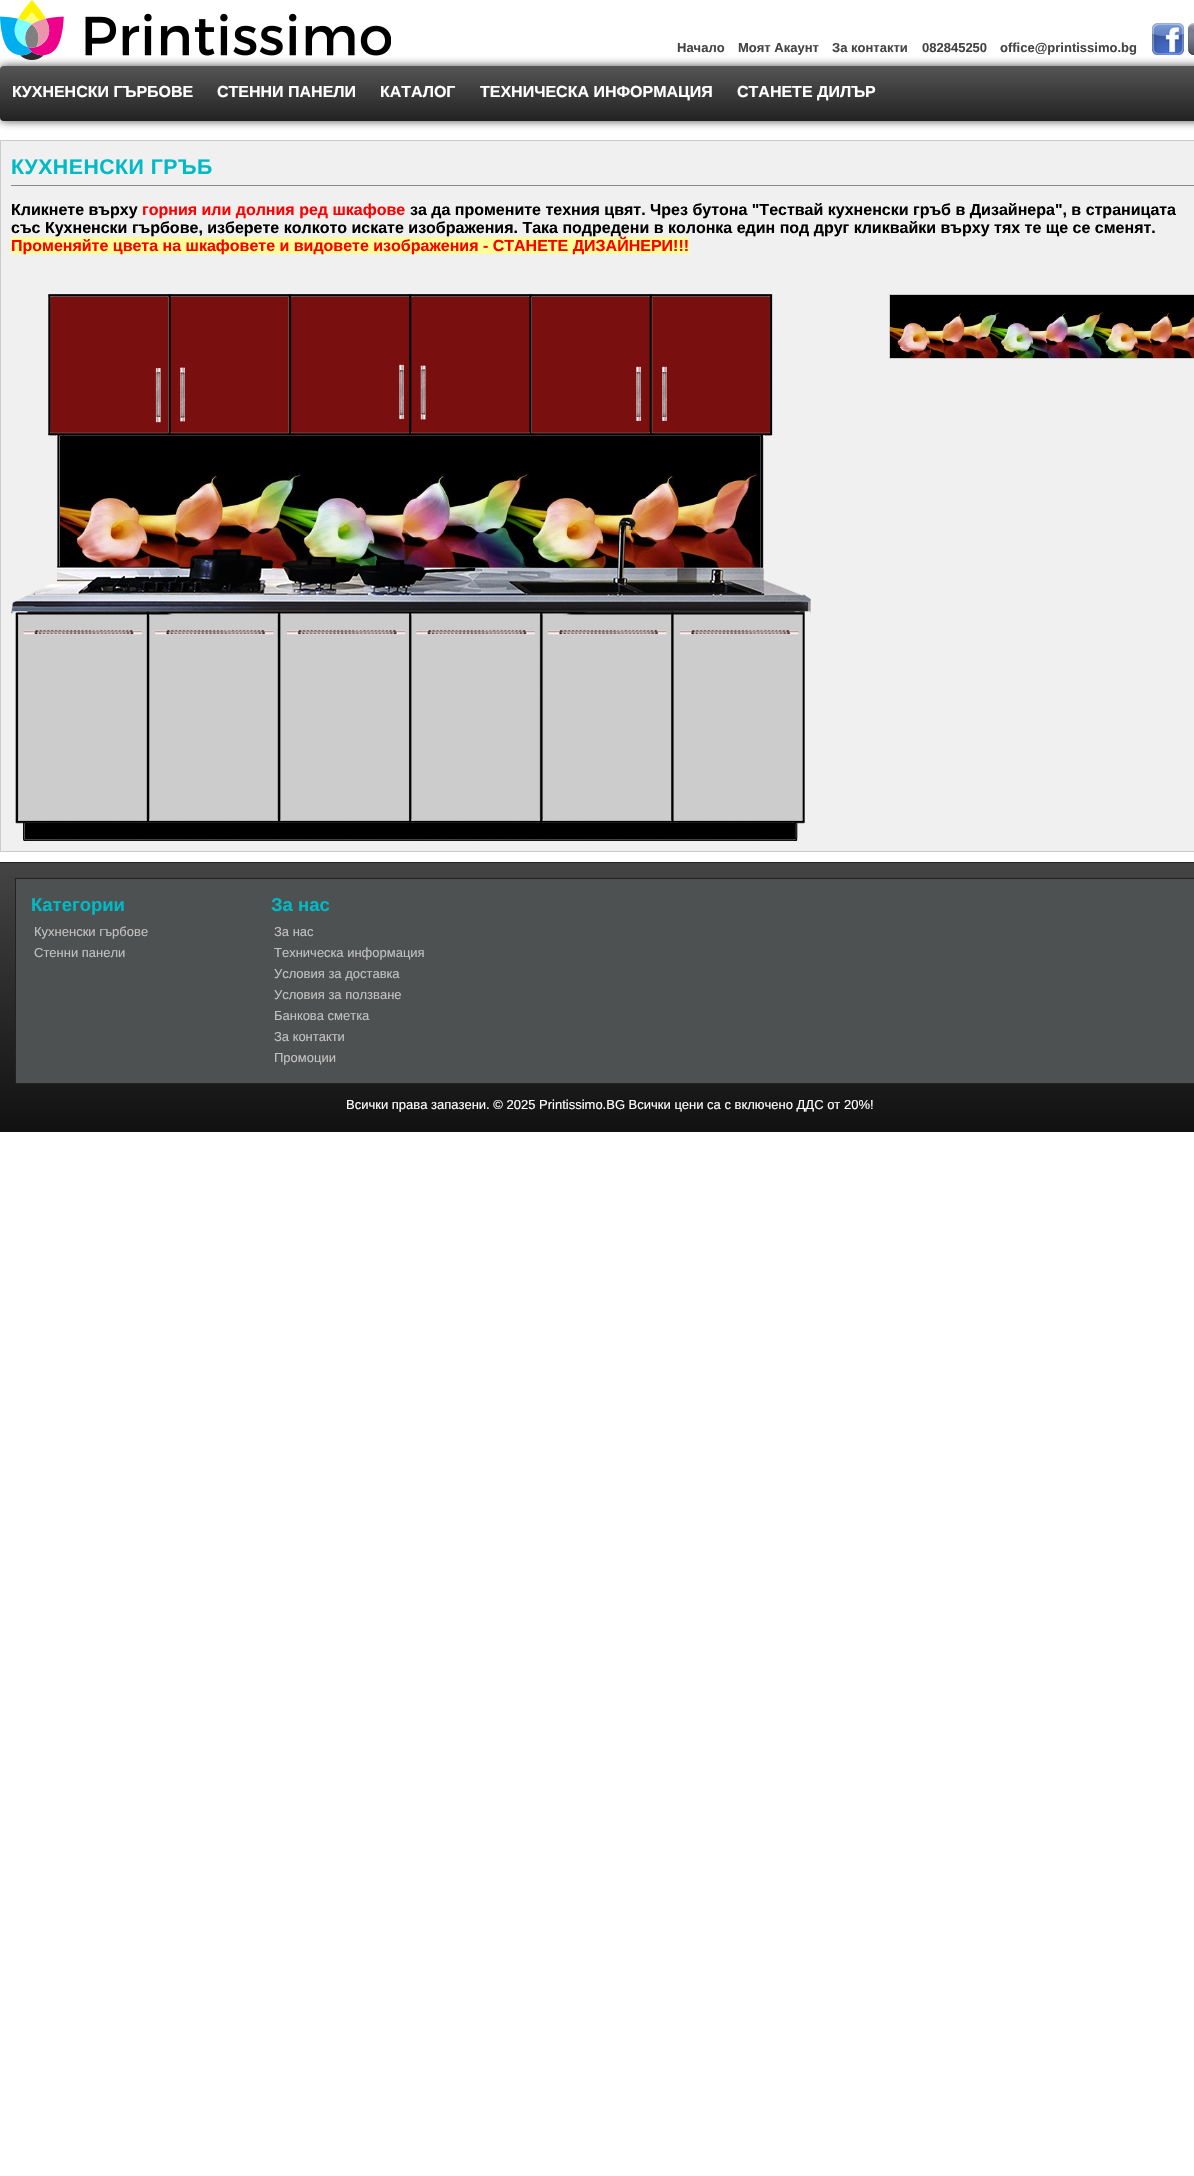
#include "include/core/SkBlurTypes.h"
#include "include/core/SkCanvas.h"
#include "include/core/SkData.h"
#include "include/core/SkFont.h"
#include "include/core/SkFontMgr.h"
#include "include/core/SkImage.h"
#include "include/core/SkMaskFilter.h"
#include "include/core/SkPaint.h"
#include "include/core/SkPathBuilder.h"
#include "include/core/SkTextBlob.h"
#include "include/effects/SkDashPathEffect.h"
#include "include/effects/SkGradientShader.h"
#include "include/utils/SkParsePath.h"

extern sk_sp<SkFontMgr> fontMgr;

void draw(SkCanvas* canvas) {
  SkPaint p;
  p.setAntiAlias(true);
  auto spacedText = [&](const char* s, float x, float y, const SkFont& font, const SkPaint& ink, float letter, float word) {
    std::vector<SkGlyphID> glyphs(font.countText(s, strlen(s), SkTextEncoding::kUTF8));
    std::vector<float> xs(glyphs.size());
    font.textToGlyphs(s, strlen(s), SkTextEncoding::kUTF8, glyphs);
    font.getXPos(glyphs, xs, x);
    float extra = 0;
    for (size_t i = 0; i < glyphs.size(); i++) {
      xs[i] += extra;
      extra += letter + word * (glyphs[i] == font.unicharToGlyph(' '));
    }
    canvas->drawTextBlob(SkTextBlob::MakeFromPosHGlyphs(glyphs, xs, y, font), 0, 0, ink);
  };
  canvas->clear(SK_ColorWHITE);
  p.setColor(SkColorSetARGB(179, 1, 1, 1));
  p.setMaskFilter(SkMaskFilter::MakeBlur(kNormal_SkBlurStyle, 5));
  canvas->drawRoundRect(SkRect::MakeLTRB(0, 66, 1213, 121), 4, 4, p);
  p.setMaskFilter(nullptr);
  canvas->drawImageRect(SkImages::DeferredFromEncodedData(SkData::MakeFromFileName("images/1.png")), SkRect::MakeLTRB(0, 0, 391, 60), SkSamplingOptions());
  canvas->drawImageRect(SkImages::DeferredFromEncodedData(SkData::MakeFromFileName("images/2.png")), SkRect::MakeLTRB(1152, 23, 1184, 55), SkSamplingOptions());
  canvas->drawImageRect(SkImages::DeferredFromEncodedData(SkData::MakeFromFileName("images/3.png")), SkRect::MakeLTRB(1188, 23, 1194, 55), SkSamplingOptions());
  {
    const SkColor colors[] = {SkColorSetRGB(85, 85, 85), SkColorSetRGB(34, 34, 34)};
    const float stops[] = {0, 1};
    const SkPoint ends[] = {{610, 66}, {610, 121}};
    p.setShader(SkGradientShader::MakeLinear(ends, colors, stops, 2, SkTileMode::kClamp));
    p.setAlpha(255);
  }
  canvas->drawRoundRect(SkRect::MakeLTRB(0, 66, 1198, 121), 4, 4, p);
  p.setShader(nullptr);
  p.setColor(SkColorSetRGB(240, 240, 240));
  canvas->drawRect(SkRect::MakeLTRB(0.5f, 140.5f, 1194.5f, 851.5f), p);
  p.setStyle(SkPaint::kStroke_Style);
  p.setStrokeWidth(1);
  p.setColor(SkColorSetRGB(204, 204, 204));
  canvas->drawRect(SkRect::MakeLTRB(0.5f, 140.5f, 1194.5f, 851.5f), p);
  p.setStyle(SkPaint::kFill_Style);
  p.setColor(SkColorSetRGB(136, 136, 136));
  canvas->drawRect(SkRect::MakeLTRB(11, 185, 1194, 186), p);
  p.setColor(SkColorSetRGB(255, 255, 153));
  canvas->drawRect(SkRect::MakeLTRB(11, 237, 689, 254), p);
  p.setColor(SkColorSetRGB(122, 15, 15));
  canvas->drawRect(SkRect::MakeLTRB(50, 294, 770, 434), p);
  p.setStyle(SkPaint::kStroke_Style);
  p.setColor(SkColorSetRGB(204, 204, 204));
  canvas->drawRect(SkRect::MakeLTRB(59.5f, 435.5f, 762.5f, 575.5f), p);
  canvas->drawImageRect(SkImages::DeferredFromEncodedData(SkData::MakeFromFileName("images/5.png")), SkRect::MakeLTRB(60, 436, 761, 569), SkSamplingOptions());
  p.setStyle(SkPaint::kFill_Style);
  canvas->drawRect(SkRect::MakeLTRB(16, 614, 804, 824), p);
  p.setColor(SK_ColorBLACK);
  canvas->drawRect(SkRect::MakeLTRB(24, 823, 796, 840), p);
  canvas->drawImageRect(SkImages::DeferredFromEncodedData(SkData::MakeFromFileName("images/4.png")), SkRect::MakeLTRB(11, 294, 811, 841), SkSamplingOptions());
  p.setStyle(SkPaint::kStroke_Style);
  p.setColor(SkColorSetRGB(204, 204, 204));
  canvas->drawRect(SkRect::MakeLTRB(889.5f, 294.5f, 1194.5f, 358.5f), p);
  canvas->drawImageRect(SkImages::DeferredFromEncodedData(SkData::MakeFromFileName("images/6.png")), SkRect::MakeLTRB(890, 295, 1194, 358), SkSamplingOptions());
  p.setStyle(SkPaint::kFill_Style);
  {
    const SkColor colors[] = {SkColorSetRGB(68, 68, 68), SkColorSetRGB(17, 17, 17)};
    const float stops[] = {0, 1};
    const SkPoint ends[] = {{610, 863}, {610, 1132}};
    p.setShader(SkGradientShader::MakeLinear(ends, colors, stops, 2, SkTileMode::kClamp));
    p.setAlpha(255);
  }
  canvas->drawRect(SkRect::MakeLTRB(0, 863, 1194, 1132), p);
  p.setShader(nullptr);
  p.setColor(SkColorSetRGB(34, 35, 36));
  canvas->drawRect(SkRect::MakeLTRB(0, 862, 1194, 863), p);
  p.setColor(SkColorSetRGB(78, 81, 81));
  canvas->drawRect(SkRect::MakeLTRB(15.5f, 878.5f, 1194.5f, 1083.5f), p);
  p.setStyle(SkPaint::kStroke_Style);
  p.setColor(SkColorSetRGB(34, 34, 34));
  canvas->drawRect(SkRect::MakeLTRB(15.5f, 878.5f, 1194.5f, 1083.5f), p);
  SkFont font1(fontMgr->matchFamilyStyle("Liberation Sans", SkFontStyle::Bold()), 13);
  font1.setSubpixel(true);
  p.setStyle(SkPaint::kFill_Style);
  p.setColor(SkColorSetRGB(68, 68, 68));
  canvas->drawString("Начало", 677, 52, font1, p);
  canvas->drawString("Моят Акаунт", 738, 52, font1, p);
  canvas->drawString("За контакти", 832, 52, font1, p);
  canvas->drawString("082845250", 922, 52, font1, p);
  canvas->drawString("office@printissimo.bg", 1000, 52, font1, p);
  SkFont font2(fontMgr->matchFamilyStyle("Liberation Sans", SkFontStyle::Bold()), 16);
  font2.setSubpixel(true);
  p.setColor(SK_ColorWHITE);
  canvas->drawString("КУХНЕНСКИ ГЪРБОВЕ", 12, 97, font2, p);
  canvas->drawString("СТЕННИ ПАНЕЛИ", 217, 97, font2, p);
  canvas->drawString("КАТАЛОГ", 380, 97, font2, p);
  canvas->drawString("ТЕХНИЧЕСКА ИНФОРМАЦИЯ", 480, 97, font2, p);
  canvas->drawString("СТАНЕТЕ ДИЛЪР", 737, 97, font2, p);
  SkFont font3(fontMgr->matchFamilyStyle("Liberation Sans", SkFontStyle::Bold()), 21.25f);
  font3.setSubpixel(true);
  p.setColor(SkColorSetRGB(0, 186, 198));
  spacedText("КУХНЕНСКИ ГРЪБ", 11, 174, font3, p, 0.5f, 0);
  p.setColor(SK_ColorBLACK);
  canvas->drawString("Кликнете върху", 11, 215, font2, p);
  p.setColor(SkColorSetRGB(255, 0, 0));
  canvas->drawString("горния или долния ред шкафове", 142, 215, font2, p);
  p.setColor(SK_ColorBLACK);
  canvas->drawString("за да промените техния цвят. Чрез бутона \"Тествай кухненски гръб в Дизайнера\", в страницата", 410, 215, font2, p);
  canvas->drawString("със Кухненски гърбове, изберете колкото искате изображения. Така подредени в колонка един под друг кликвайки върху тях те ще се сменят.", 11, 233, font2, p);
  p.setColor(SkColorSetRGB(255, 0, 0));
  canvas->drawString("Променяйте цвета на шкафовете и видовете изображения - СТАНЕТЕ ДИЗАЙНЕРИ!!!", 11, 251, font2, p);
  SkFont font4(fontMgr->matchFamilyStyle("Liberation Sans", SkFontStyle::Bold()), 18.5f);
  font4.setSubpixel(true);
  p.setColor(SkColorSetRGB(0, 186, 198));
  canvas->drawString("Категории", 31, 911, font4, p);
  SkFont font5(fontMgr->matchFamilyStyle("Liberation Sans", SkFontStyle::Normal()), 13);
  font5.setSubpixel(true);
  p.setColor(SkColorSetRGB(193, 193, 193));
  canvas->drawString("Кухненски гърбове", 34, 936, font5, p);
  canvas->drawString("Стенни панели", 34, 957, font5, p);
  p.setColor(SkColorSetRGB(0, 186, 198));
  canvas->drawString("За нас", 271, 911, font4, p);
  p.setColor(SkColorSetRGB(193, 193, 193));
  canvas->drawString("За нас", 274, 936, font5, p);
  canvas->drawString("Техническа информация", 274, 957, font5, p);
  canvas->drawString("Условия за доставка", 274, 978, font5, p);
  canvas->drawString("Условия за ползване", 274, 999, font5, p);
  canvas->drawString("Банкова сметка", 274, 1020, font5, p);
  canvas->drawString("За контакти", 274, 1041, font5, p);
  canvas->drawString("Промоции", 274, 1062, font5, p);
  p.setColor(SK_ColorWHITE);
  canvas->drawString("Всички права запазени. © 2025 Printissimo.BG Всички цени са с включено ДДС от 20%!", 346, 1109, font5, p);
}
